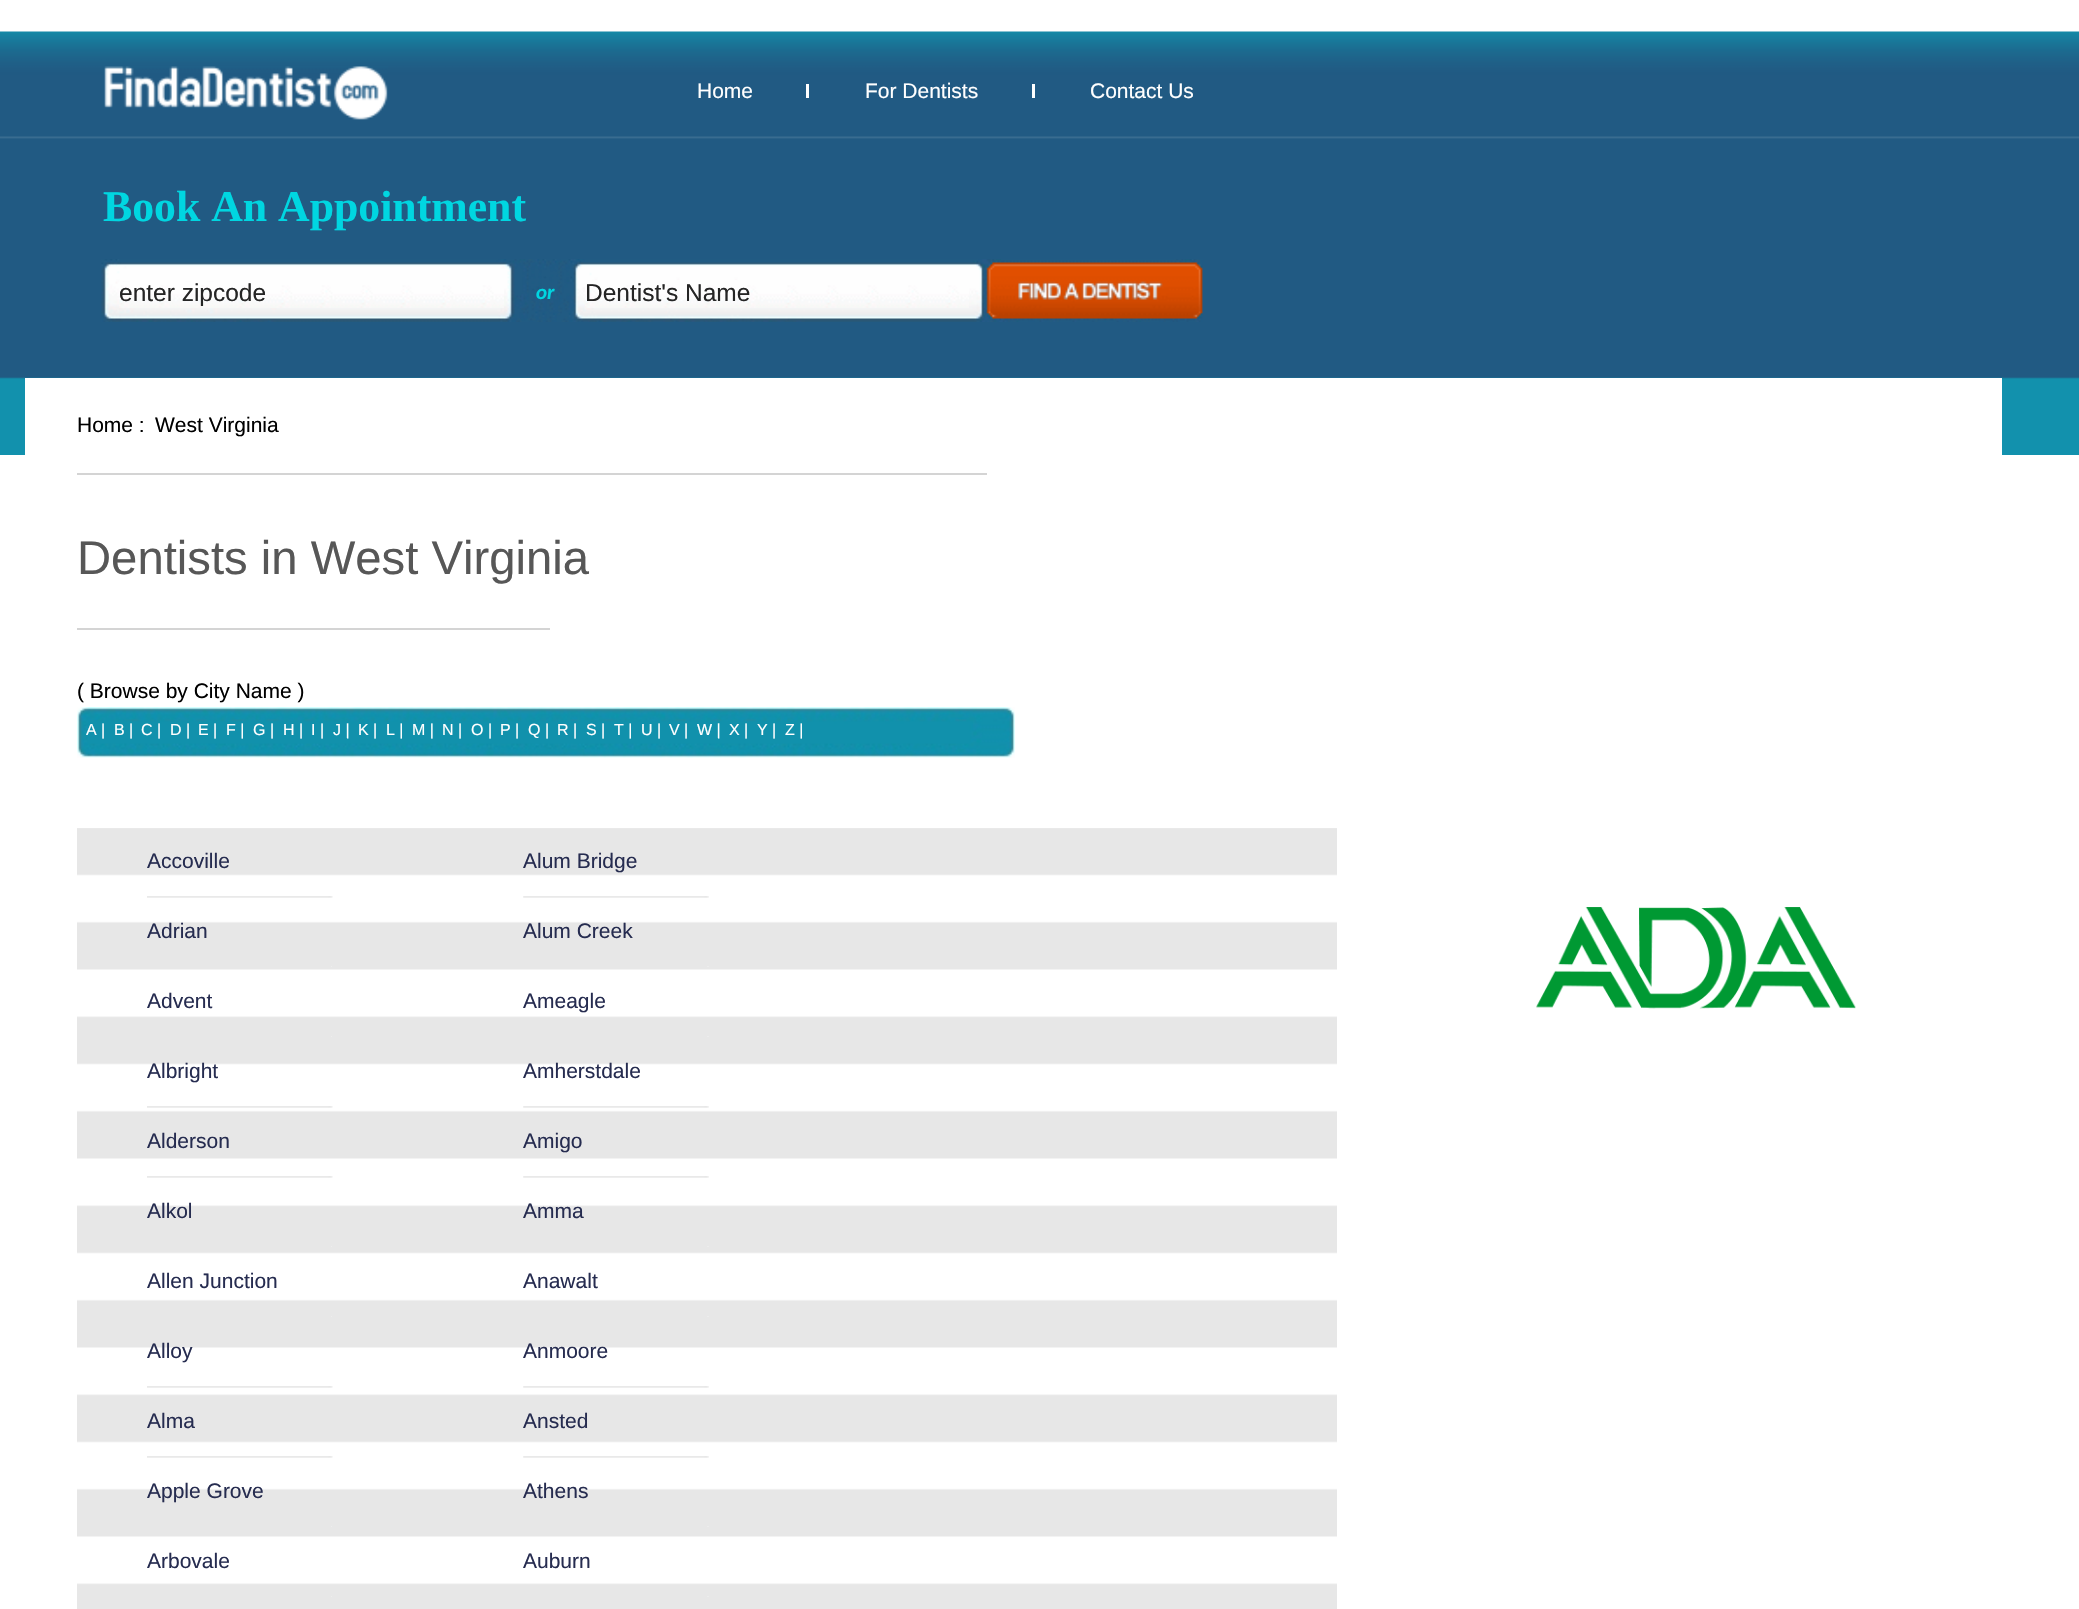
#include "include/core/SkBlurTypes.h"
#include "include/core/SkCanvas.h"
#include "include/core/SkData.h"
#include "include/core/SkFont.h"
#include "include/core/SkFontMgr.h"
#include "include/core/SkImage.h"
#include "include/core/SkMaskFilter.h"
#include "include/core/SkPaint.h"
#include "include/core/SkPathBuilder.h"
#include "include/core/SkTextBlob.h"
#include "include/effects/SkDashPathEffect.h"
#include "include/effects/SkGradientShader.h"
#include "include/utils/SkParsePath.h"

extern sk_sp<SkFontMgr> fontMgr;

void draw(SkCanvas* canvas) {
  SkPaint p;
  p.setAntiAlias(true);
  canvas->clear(SK_ColorWHITE);
  canvas->drawImageRect(SkImages::DeferredFromEncodedData(SkData::MakeFromFileName("images/1.png")), SkRect::MakeLTRB(0, 31, 2079, 455), SkSamplingOptions());
  canvas->drawImageRect(SkImages::DeferredFromEncodedData(SkData::MakeFromFileName("images/2.png")), SkRect::MakeLTRB(104, 66, 388, 120), SkSamplingOptions());
  p.setColor(SK_ColorWHITE);
  canvas->drawRect(SkRect::MakeLTRB(806, 84, 809, 98), p);
  canvas->drawRect(SkRect::MakeLTRB(1032, 84, 1035, 98), p);
  canvas->drawImageRect(SkImages::DeferredFromEncodedData(SkData::MakeFromFileName("images/3.png")), SkRect::MakeLTRB(101, 259, 1203, 322), SkSamplingOptions());
  canvas->drawImageRect(SkImages::DeferredFromEncodedData(SkData::MakeFromFileName("images/4.png")), SkRect::MakeLTRB(119, 282, 504, 308), SkSamplingOptions());
  canvas->drawImageRect(SkImages::DeferredFromEncodedData(SkData::MakeFromFileName("images/5.png")), SkRect::MakeLTRB(585, 280, 969, 308), SkSamplingOptions());
  canvas->drawRect(SkRect::MakeLTRB(25, 378, 2002, 455), p);
  p.setColor(SkColorSetRGB(212, 212, 212));
  canvas->drawRect(SkRect::MakeLTRB(77, 473, 987, 475), p);
  canvas->drawRect(SkRect::MakeLTRB(77, 628, 550, 630), p);
  canvas->drawImageRect(SkImages::DeferredFromEncodedData(SkData::MakeFromFileName("images/6.png")), SkRect::MakeLTRB(77, 707, 1015, 758), SkSamplingOptions());
  canvas->drawImageRect(SkImages::DeferredFromEncodedData(SkData::MakeFromFileName("images/7.png")), SkRect::MakeLTRB(77, 828, 1337, 1609), SkSamplingOptions());
  canvas->drawImageRect(SkImages::DeferredFromEncodedData(SkData::MakeFromFileName("images/8.png")), SkRect::MakeLTRB(147, 896, 333, 898), SkSamplingOptions());
  p.setColor(SkColorSetRGB(237, 237, 237));
  canvas->drawRect(SkRect::MakeLTRB(331, 966, 332, 967), p);
  canvas->drawRect(SkRect::MakeLTRB(331, 1036, 332, 1037), p);
  canvas->drawImageRect(SkImages::DeferredFromEncodedData(SkData::MakeFromFileName("images/8.png")), SkRect::MakeLTRB(147, 1106, 333, 1108), SkSamplingOptions());
  canvas->drawImageRect(SkImages::DeferredFromEncodedData(SkData::MakeFromFileName("images/8.png")), SkRect::MakeLTRB(147, 1176, 333, 1178), SkSamplingOptions());
  canvas->drawRect(SkRect::MakeLTRB(331, 1246, 332, 1247), p);
  canvas->drawRect(SkRect::MakeLTRB(331, 1316, 332, 1317), p);
  canvas->drawImageRect(SkImages::DeferredFromEncodedData(SkData::MakeFromFileName("images/8.png")), SkRect::MakeLTRB(147, 1386, 333, 1388), SkSamplingOptions());
  canvas->drawImageRect(SkImages::DeferredFromEncodedData(SkData::MakeFromFileName("images/8.png")), SkRect::MakeLTRB(147, 1456, 333, 1458), SkSamplingOptions());
  canvas->drawImageRect(SkImages::DeferredFromEncodedData(SkData::MakeFromFileName("images/9.png")), SkRect::MakeLTRB(523, 896, 709, 898), SkSamplingOptions());
  canvas->drawImageRect(SkImages::DeferredFromEncodedData(SkData::MakeFromFileName("images/10.png")), SkRect::MakeLTRB(707, 966, 709, 967), SkSamplingOptions());
  canvas->drawImageRect(SkImages::DeferredFromEncodedData(SkData::MakeFromFileName("images/10.png")), SkRect::MakeLTRB(707, 1036, 709, 1037), SkSamplingOptions());
  canvas->drawImageRect(SkImages::DeferredFromEncodedData(SkData::MakeFromFileName("images/9.png")), SkRect::MakeLTRB(523, 1106, 709, 1108), SkSamplingOptions());
  canvas->drawImageRect(SkImages::DeferredFromEncodedData(SkData::MakeFromFileName("images/9.png")), SkRect::MakeLTRB(523, 1176, 709, 1178), SkSamplingOptions());
  canvas->drawImageRect(SkImages::DeferredFromEncodedData(SkData::MakeFromFileName("images/10.png")), SkRect::MakeLTRB(707, 1246, 709, 1247), SkSamplingOptions());
  canvas->drawImageRect(SkImages::DeferredFromEncodedData(SkData::MakeFromFileName("images/10.png")), SkRect::MakeLTRB(707, 1316, 709, 1317), SkSamplingOptions());
  canvas->drawImageRect(SkImages::DeferredFromEncodedData(SkData::MakeFromFileName("images/9.png")), SkRect::MakeLTRB(523, 1386, 709, 1388), SkSamplingOptions());
  canvas->drawImageRect(SkImages::DeferredFromEncodedData(SkData::MakeFromFileName("images/9.png")), SkRect::MakeLTRB(523, 1456, 709, 1458), SkSamplingOptions());
  canvas->drawRect(SkRect::MakeLTRB(331, 1526, 332, 1527), p);
  canvas->drawRect(SkRect::MakeLTRB(331, 1596, 332, 1597), p);
  canvas->drawImageRect(SkImages::DeferredFromEncodedData(SkData::MakeFromFileName("images/10.png")), SkRect::MakeLTRB(707, 1526, 709, 1527), SkSamplingOptions());
  canvas->drawImageRect(SkImages::DeferredFromEncodedData(SkData::MakeFromFileName("images/10.png")), SkRect::MakeLTRB(707, 1596, 709, 1597), SkSamplingOptions());
  canvas->drawImageRect(SkImages::DeferredFromEncodedData(SkData::MakeFromFileName("images/11.png")), SkRect::MakeLTRB(1536, 907, 1856, 1009), SkSamplingOptions());
  SkFont font1(fontMgr->matchFamilyStyle("Liberation Sans", SkFontStyle::Normal()), 21);
  font1.setSubpixel(true);
  p.setColor(SK_ColorWHITE);
  canvas->drawString("Home", 697, 98, font1, p);
  canvas->drawString("For Dentists", 865, 98, font1, p);
  canvas->drawString("Contact Us", 1090, 98, font1, p);
  SkFont font2(fontMgr->matchFamilyStyle("Liberation Serif", SkFontStyle::Bold()), 43.75f);
  font2.setSubpixel(true);
  p.setColor(SkColorSetRGB(0, 214, 225));
  canvas->drawString("Book An Appointment", 103, 221, font2, p);
  SkFont font3(fontMgr->matchFamilyStyle("Liberation Sans", SkFontStyle::Normal()), 24.5f);
  font3.setSubpixel(true);
  p.setColor(SkColorSetRGB(37, 37, 37));
  canvas->drawString("enter zipcode", 119, 301, font3, p);
  SkFont font4(fontMgr->matchFamilyStyle("Carlito", SkFontStyle::BoldItalic()), 21);
  font4.setSubpixel(true);
  p.setColor(SkColorSetRGB(0, 214, 225));
  canvas->drawString("or", 536, 299, font4, p);
  p.setColor(SkColorSetRGB(37, 37, 37));
  canvas->drawString("Dentist's Name", 585, 301, font3, p);
  p.setColor(SK_ColorBLACK);
  canvas->drawString("Home :", 77, 432, font1, p);
  canvas->drawString("West Virginia", 155, 432, font1, p);
  SkFont font5(fontMgr->matchFamilyStyle("Liberation Sans", SkFontStyle::Normal()), 47.25f);
  font5.setSubpixel(true);
  p.setColor(SkColorSetRGB(87, 87, 87));
  canvas->drawString("Dentists in West Virginia", 77, 574, font5, p);
  p.setColor(SK_ColorBLACK);
  canvas->drawString("( Browse by City Name )", 77, 698, font1, p);
  SkFont font6(fontMgr->matchFamilyStyle("Liberation Sans", SkFontStyle::Normal()), 16);
  font6.setSubpixel(true);
  p.setColor(SK_ColorWHITE);
  canvas->drawString("A |", 86, 735, font6, p);
  canvas->drawString("B |", 114, 735, font6, p);
  canvas->drawString("C |", 141, 735, font6, p);
  canvas->drawString("D |", 170, 735, font6, p);
  canvas->drawString("E |", 198, 735, font6, p);
  canvas->drawString("F |", 226, 735, font6, p);
  canvas->drawString("G |", 253, 735, font6, p);
  canvas->drawString("H |", 283, 735, font6, p);
  canvas->drawString("I |", 311, 735, font6, p);
  canvas->drawString("J |", 333, 735, font6, p);
  canvas->drawString("K |", 358, 735, font6, p);
  canvas->drawString("L |", 386, 735, font6, p);
  canvas->drawString("M |", 412, 735, font6, p);
  canvas->drawString("N |", 442, 735, font6, p);
  canvas->drawString("O |", 471, 735, font6, p);
  canvas->drawString("P |", 500, 735, font6, p);
  canvas->drawString("Q |", 528, 735, font6, p);
  canvas->drawString("R |", 557, 735, font6, p);
  canvas->drawString("S |", 586, 735, font6, p);
  canvas->drawString("T |", 614, 735, font6, p);
  canvas->drawString("U |", 641, 735, font6, p);
  canvas->drawString("V |", 669, 735, font6, p);
  canvas->drawString("W |", 697, 735, font6, p);
  canvas->drawString("X |", 729, 735, font6, p);
  canvas->drawString("Y |", 757, 735, font6, p);
  canvas->drawString("Z |", 785, 735, font6, p);
  p.setColor(SkColorSetRGB(38, 44, 80));
  canvas->drawString("Accoville", 147, 868, font1, p);
  canvas->drawString("Adrian", 147, 938, font1, p);
  canvas->drawString("Advent", 147, 1008, font1, p);
  canvas->drawString("Albright", 147, 1078, font1, p);
  canvas->drawString("Alderson", 147, 1148, font1, p);
  canvas->drawString("Alkol", 147, 1218, font1, p);
  canvas->drawString("Allen Junction", 147, 1288, font1, p);
  canvas->drawString("Alloy", 147, 1358, font1, p);
  canvas->drawString("Alma", 147, 1428, font1, p);
  canvas->drawString("Alum Bridge", 523, 868, font1, p);
  canvas->drawString("Alum Creek", 523, 938, font1, p);
  canvas->drawString("Ameagle", 523, 1008, font1, p);
  canvas->drawString("Amherstdale", 523, 1078, font1, p);
  canvas->drawString("Amigo", 523, 1148, font1, p);
  canvas->drawString("Amma", 523, 1218, font1, p);
  canvas->drawString("Anawalt", 523, 1288, font1, p);
  canvas->drawString("Anmoore", 523, 1358, font1, p);
  canvas->drawString("Ansted", 523, 1428, font1, p);
  canvas->drawString("Apple Grove", 147, 1498, font1, p);
  canvas->drawString("Arbovale", 147, 1568, font1, p);
  canvas->drawString("Athens", 523, 1498, font1, p);
  canvas->drawString("Auburn", 523, 1568, font1, p);
}
